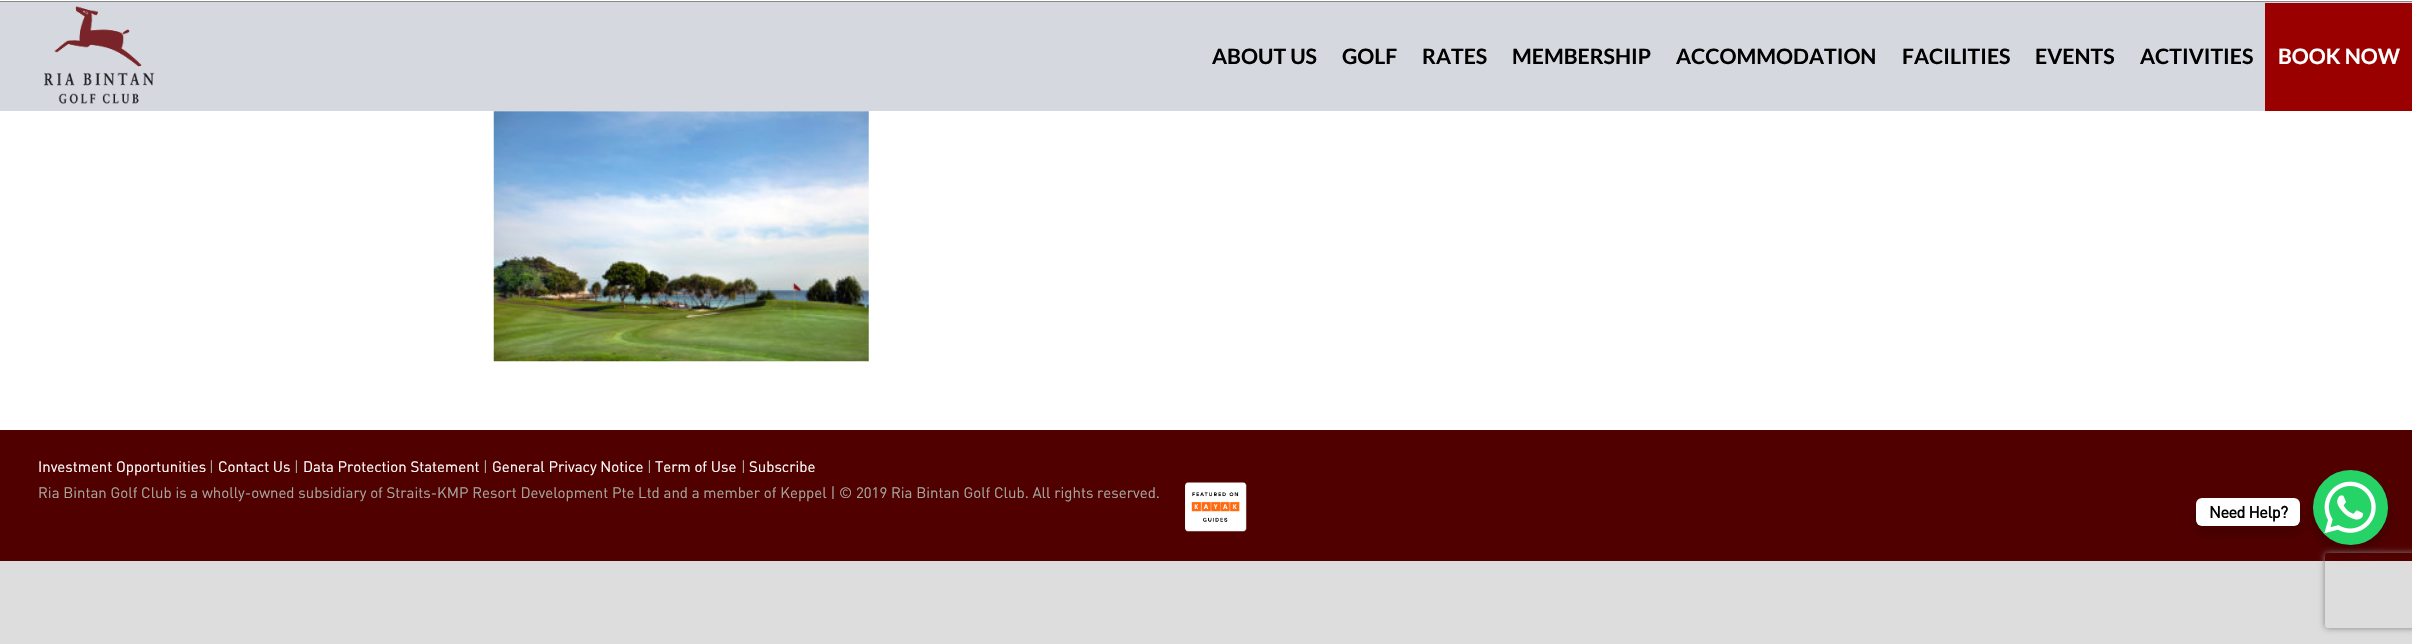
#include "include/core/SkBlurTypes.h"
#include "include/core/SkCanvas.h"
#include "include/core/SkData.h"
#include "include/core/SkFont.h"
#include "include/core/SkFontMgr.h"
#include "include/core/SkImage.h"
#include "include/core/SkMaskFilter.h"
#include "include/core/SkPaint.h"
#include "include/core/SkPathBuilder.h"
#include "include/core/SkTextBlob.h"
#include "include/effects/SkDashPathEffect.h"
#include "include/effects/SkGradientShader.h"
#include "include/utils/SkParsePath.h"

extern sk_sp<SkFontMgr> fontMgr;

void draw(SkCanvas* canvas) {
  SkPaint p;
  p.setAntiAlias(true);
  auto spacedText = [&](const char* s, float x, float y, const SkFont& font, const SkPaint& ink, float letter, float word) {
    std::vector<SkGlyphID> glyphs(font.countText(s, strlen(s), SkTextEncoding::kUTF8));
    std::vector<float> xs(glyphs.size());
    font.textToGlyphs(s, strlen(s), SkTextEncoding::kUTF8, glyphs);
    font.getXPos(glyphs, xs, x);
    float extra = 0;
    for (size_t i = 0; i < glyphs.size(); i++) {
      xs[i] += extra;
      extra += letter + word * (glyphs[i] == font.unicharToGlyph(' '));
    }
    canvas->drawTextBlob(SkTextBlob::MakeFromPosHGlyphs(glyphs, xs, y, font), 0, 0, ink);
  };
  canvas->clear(SkColorSetRGB(221, 221, 221));
  p.setColor(SK_ColorWHITE);
  canvas->drawRect(SkRect::MakeLTRB(0, 0, 2412, 430), p);
  p.setColor(SkColorSetRGB(213, 216, 222));
  canvas->drawRect(SkRect::MakeLTRB(0, 2, 2412, 111), p);
  p.setColor(SkColorSetRGB(137, 137, 137));
  canvas->drawRect(SkRect::MakeLTRB(0, 1, 2412, 2), p);
  canvas->drawImageRect(SkImages::DeferredFromEncodedData(SkData::MakeFromFileName("images/1.png")), SkRect::MakeLTRB(44, 6, 155, 104), SkSamplingOptions());
  p.setColor(SkColorSetRGB(154, 0, 0));
  canvas->drawRect(SkRect::MakeLTRB(2265, 3, 2412, 111), p);
  canvas->drawImageRect(SkImages::DeferredFromEncodedData(SkData::MakeFromFileName("images/2.png")), SkRect::MakeLTRB(493, 111, 869, 362), SkSamplingOptions());
  p.setColor(SkColorSetRGB(81, 0, 0));
  canvas->drawRect(SkRect::MakeLTRB(0, 430, 2412, 561), p);
  canvas->drawImageRect(SkImages::DeferredFromEncodedData(SkData::MakeFromFileName("images/3.png")), SkRect::MakeLTRB(1185, 482, 1247, 532), SkSamplingOptions());
  p.setColor(SkColorSetARGB(38, 0, 0, 0));
  p.setMaskFilter(SkMaskFilter::MakeBlur(kNormal_SkBlurStyle, 5));
  canvas->drawRoundRect(SkRect::MakeLTRB(2310, 475, 2390, 555), 40, 40, p);
  p.setMaskFilter(nullptr);
  canvas->save();
  canvas->clipPath(SkPathBuilder(SkPathFillType::kEvenOdd).moveTo(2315, 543).lineTo(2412, 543).lineTo(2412, 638).lineTo(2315, 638).close().moveTo(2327.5f, 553).lineTo(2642.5f, 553).cubicTo(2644, 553, 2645, 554, 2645, 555.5f).lineTo(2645, 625.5f).cubicTo(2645, 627, 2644, 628, 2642.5f, 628).lineTo(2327.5f, 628).cubicTo(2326, 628, 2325, 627, 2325, 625.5f).lineTo(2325, 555.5f).cubicTo(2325, 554, 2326, 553, 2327.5f, 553).close().detach(), true);
  p.setColor(SkColorSetRGB(128, 128, 128));
  p.setMaskFilter(SkMaskFilter::MakeBlur(kNormal_SkBlurStyle, 3));
  canvas->drawRoundRect(SkRect::MakeLTRB(2325, 553, 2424, 628), 2.5f, 2.5f, p);
  p.setMaskFilter(nullptr);
  canvas->restore();
  p.setColor(SkColorSetRGB(37, 211, 102));
  canvas->drawCircle(2350.5f, 507.5f, 37.5f, p);
  p.setColor(SkColorSetARGB(38, 0, 0, 0));
  p.setMaskFilter(SkMaskFilter::MakeBlur(kNormal_SkBlurStyle, 5));
  canvas->drawRoundRect(SkRect::MakeLTRB(2194, 503, 2303, 536), 9, 9, p);
  p.setMaskFilter(nullptr);
  p.setColor(SK_ColorWHITE);
  canvas->drawRoundRect(SkRect::MakeLTRB(2196, 498, 2300, 526), 6, 6, p);
  canvas->drawImageRect(SkImages::DeferredFromEncodedData(SkData::MakeFromFileName("images/4.png")), SkRect::MakeLTRB(2324, 481, 2376, 534), SkSamplingOptions());
  SkFont font1(fontMgr->matchFamilyStyle("Lato", SkFontStyle::Bold()), 21.25f);
  font1.setSubpixel(true);
  p.setColor(SK_ColorBLACK);
  canvas->drawString("ABOUT US", 1212, 64, font1, p);
  canvas->drawString("GOLF", 1342, 64, font1, p);
  canvas->drawString("RATES", 1422, 64, font1, p);
  canvas->drawString("MEMBERSHIP", 1512, 64, font1, p);
  canvas->drawString("ACCOMMODATION", 1676, 64, font1, p);
  canvas->drawString("FACILITIES", 1902, 64, font1, p);
  canvas->drawString("EVENTS", 2035, 64, font1, p);
  canvas->drawString("ACTIVITIES", 2140, 64, font1, p);
  p.setColor(SK_ColorWHITE);
  canvas->drawString("BOOK NOW", 2278, 64, font1, p);
  SkFont font2(fontMgr->matchFamilyStyle("DIN", SkFontStyle::Normal()), 15);
  font2.setSubpixel(true);
  canvas->drawString("Investment Opportunities", 38, 472, font2, p);
  p.setColor(SkColorSetRGB(164, 168, 160));
  canvas->drawString("|", 209, 472, font2, p);
  p.setColor(SK_ColorWHITE);
  canvas->drawString("Contact Us", 218, 472, font2, p);
  p.setColor(SkColorSetRGB(164, 168, 160));
  canvas->drawString("|", 294, 472, font2, p);
  p.setColor(SK_ColorWHITE);
  canvas->drawString("Data Protection Statement", 303, 472, font2, p);
  p.setColor(SkColorSetRGB(164, 168, 160));
  canvas->drawString("|", 483, 472, font2, p);
  p.setColor(SK_ColorWHITE);
  canvas->drawString("General Privacy Notice", 492, 472, font2, p);
  p.setColor(SkColorSetRGB(164, 168, 160));
  canvas->drawString("|", 647, 472, font2, p);
  p.setColor(SK_ColorWHITE);
  canvas->drawString("Term of Use", 655, 472, font2, p);
  p.setColor(SkColorSetRGB(164, 168, 160));
  canvas->drawString("|", 741, 472, font2, p);
  p.setColor(SK_ColorWHITE);
  canvas->drawString("Subscribe", 749, 472, font2, p);
  p.setColor(SkColorSetRGB(164, 168, 160));
  canvas->drawString("Ria Bintan Golf Club is a wholly-owned subsidiary of Straits-KMP Resort Development Pte Ltd and a member of Keppel | © 2019 Ria Bintan Golf Club. All rights reserved.", 38, 498, font2, p);
  SkFont font3(fontMgr->matchFamilyStyle("DIN", SkFontStyle::Bold()), 16.25f);
  font3.setSubpixel(true);
  p.setColor(SK_ColorBLACK);
  spacedText("Need Help?", 2209, 518, font3, p, -0.5f, 0);
}
